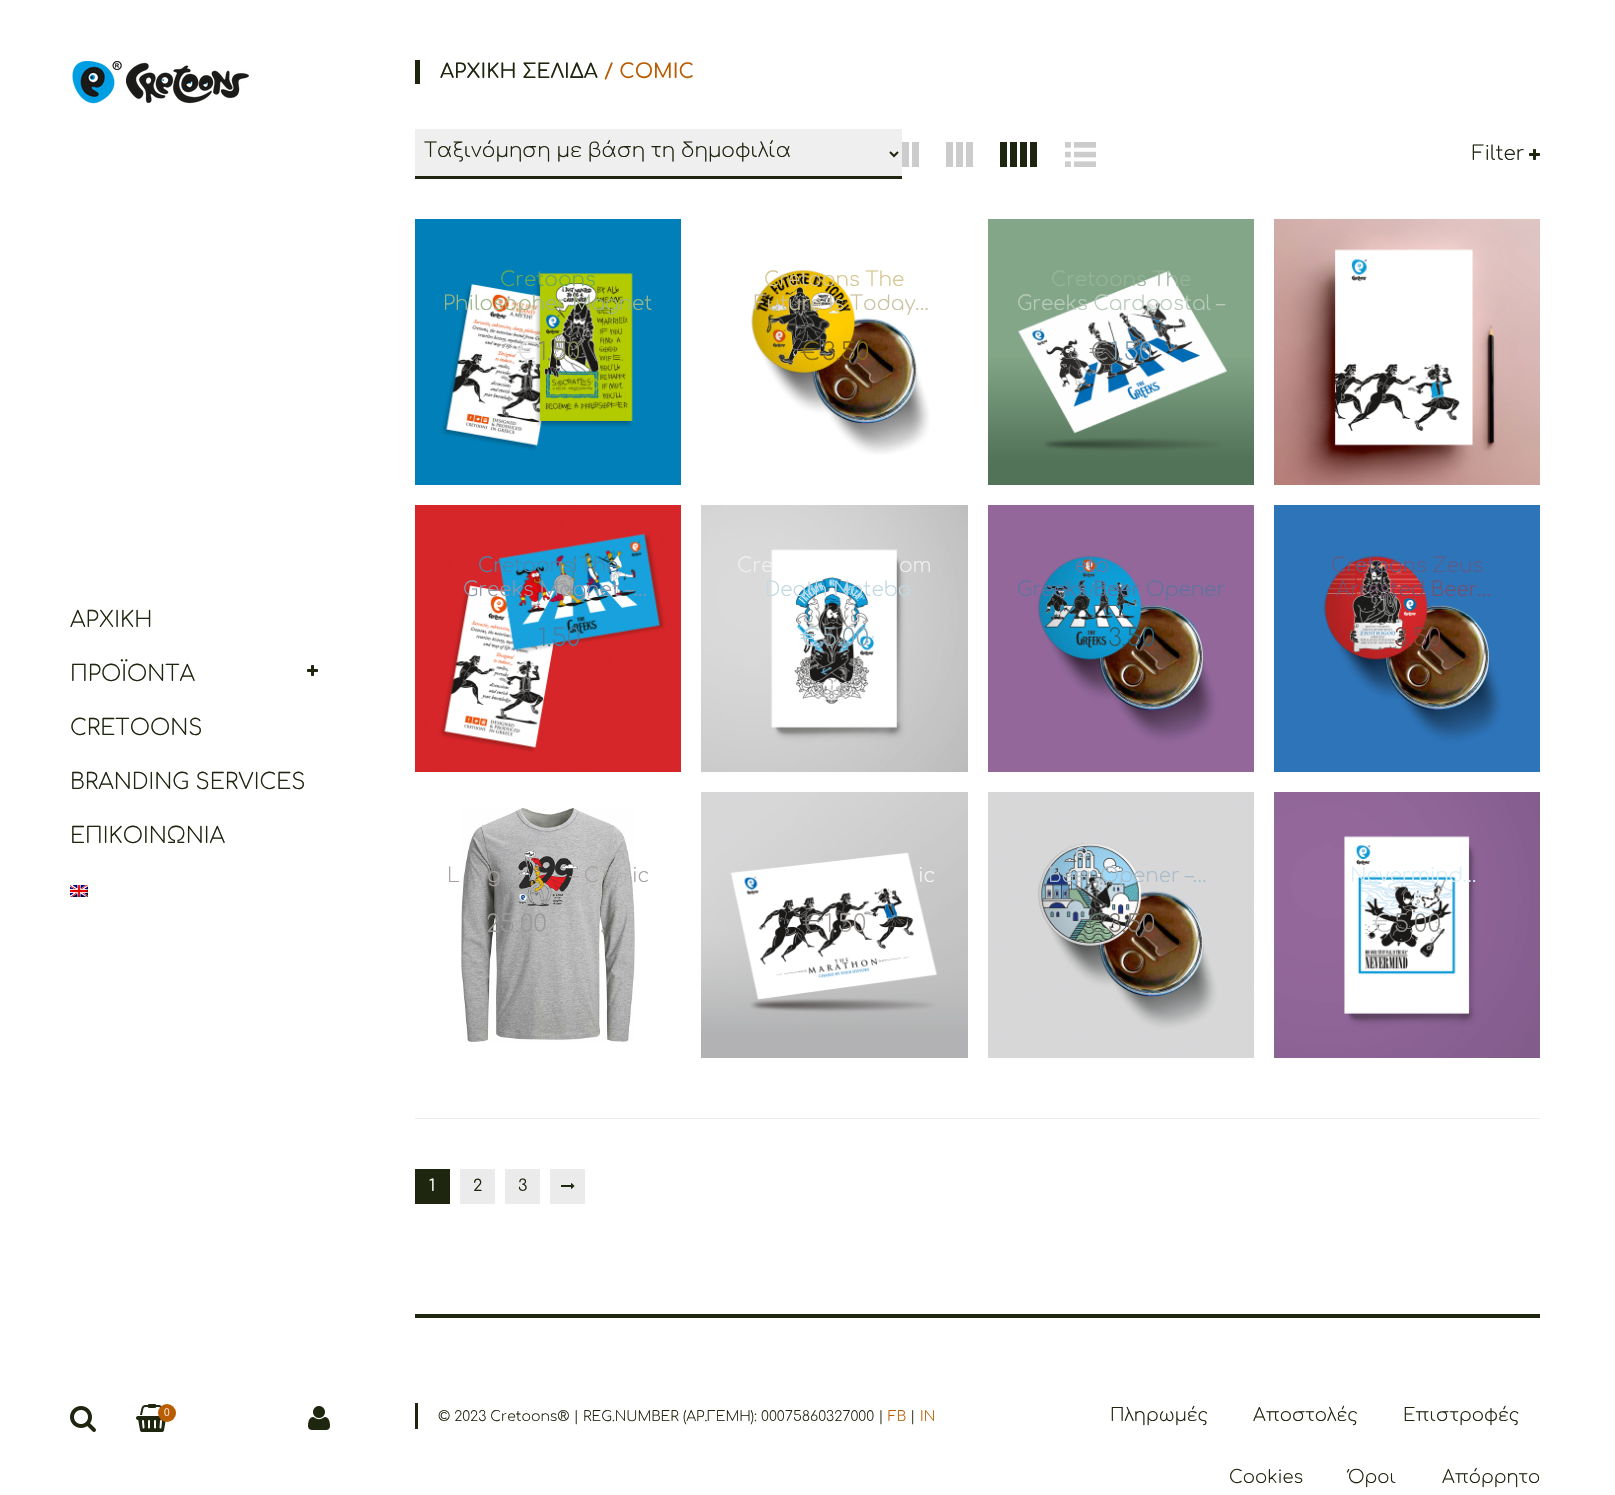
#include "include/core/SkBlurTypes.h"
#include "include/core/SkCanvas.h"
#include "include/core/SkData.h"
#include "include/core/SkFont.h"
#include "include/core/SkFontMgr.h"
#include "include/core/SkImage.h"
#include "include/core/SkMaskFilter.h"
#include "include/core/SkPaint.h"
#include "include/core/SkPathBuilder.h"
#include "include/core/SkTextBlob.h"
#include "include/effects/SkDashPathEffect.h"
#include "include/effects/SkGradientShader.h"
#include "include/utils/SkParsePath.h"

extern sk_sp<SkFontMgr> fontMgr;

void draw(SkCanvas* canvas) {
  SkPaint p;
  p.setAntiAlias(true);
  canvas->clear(SK_ColorWHITE);
  canvas->drawImageRect(SkImages::DeferredFromEncodedData(SkData::MakeFromFileName("images/1.png")), SkRect::MakeLTRB(72, 61, 249, 104), SkSamplingOptions());
  canvas->drawImageRect(SkImages::DeferredFromEncodedData(SkData::MakeFromFileName("images/2.png")), SkRect::MakeLTRB(307, 665, 318, 676), SkSamplingOptions());
  canvas->drawImageRect(SkImages::DeferredFromEncodedData(SkData::MakeFromFileName("images/3.png")), SkRect::MakeLTRB(70, 885, 88, 897), SkSamplingOptions());
  canvas->drawImageRect(SkImages::DeferredFromEncodedData(SkData::MakeFromFileName("images/4.png")), SkRect::MakeLTRB(70, 1406, 96, 1432), SkSamplingOptions());
  canvas->drawImageRect(SkImages::DeferredFromEncodedData(SkData::MakeFromFileName("images/5.png")), SkRect::MakeLTRB(136, 1404, 166, 1432), SkSamplingOptions());
  p.setColor(SkColorSetRGB(185, 93, 2));
  canvas->drawCircle(167, 1413, 9, p);
  canvas->drawImageRect(SkImages::DeferredFromEncodedData(SkData::MakeFromFileName("images/6.png")), SkRect::MakeLTRB(308, 1406, 330, 1430), SkSamplingOptions());
  p.setColor(SkColorSetRGB(31, 38, 16));
  canvas->drawRect(SkRect::MakeLTRB(415, 60, 420, 84), p);
  p.setColor(SkColorSetRGB(239, 239, 239));
  canvas->drawRect(SkRect::MakeLTRB(415, 129, 902, 176), p);
  p.setColor(SkColorSetRGB(31, 38, 16));
  canvas->drawRect(SkRect::MakeLTRB(415, 176, 902, 179), p);
  p.setStyle(SkPaint::kStroke_Style);
  p.setStrokeWidth(2);
  canvas->drawPath(SkPathBuilder().moveTo(890, 152).lineTo(894, 156).lineTo(898, 152).detach(), p);
  p.setStyle(SkPaint::kFill_Style);
  p.setColor(SkColorSetRGB(204, 204, 204));
  canvas->drawRect(SkRect::MakeLTRB(902, 142, 909, 167), p);
  canvas->drawRect(SkRect::MakeLTRB(912, 142, 919, 167), p);
  canvas->drawRect(SkRect::MakeLTRB(946, 142, 953, 167), p);
  canvas->drawRect(SkRect::MakeLTRB(956, 142, 963, 167), p);
  canvas->drawRect(SkRect::MakeLTRB(966, 142, 973, 167), p);
  p.setColor(SkColorSetRGB(31, 38, 16));
  canvas->drawRect(SkRect::MakeLTRB(1000, 142, 1007, 167), p);
  canvas->drawRect(SkRect::MakeLTRB(1010, 142, 1017, 167), p);
  canvas->drawRect(SkRect::MakeLTRB(1020, 142, 1027, 167), p);
  canvas->drawRect(SkRect::MakeLTRB(1030, 142, 1037, 167), p);
  canvas->drawImageRect(SkImages::DeferredFromEncodedData(SkData::MakeFromFileName("images/7.png")), SkRect::MakeLTRB(1065, 142, 1096, 167), SkSamplingOptions());
  canvas->drawImageRect(SkImages::DeferredFromEncodedData(SkData::MakeFromFileName("images/2.png")), SkRect::MakeLTRB(1529, 149, 1540, 160), SkSamplingOptions());
  canvas->drawImageRect(SkImages::DeferredFromEncodedData(SkData::MakeFromFileName("images/8.png")), SkRect::MakeLTRB(415, 219, 681, 485), SkSamplingOptions());
  canvas->drawImageRect(SkImages::DeferredFromEncodedData(SkData::MakeFromFileName("images/9.png")), SkRect::MakeLTRB(751, 270, 930, 455), SkSamplingOptions());
  canvas->drawImageRect(SkImages::DeferredFromEncodedData(SkData::MakeFromFileName("images/10.png")), SkRect::MakeLTRB(988, 219, 1254, 485), SkSamplingOptions());
  canvas->drawImageRect(SkImages::DeferredFromEncodedData(SkData::MakeFromFileName("images/11.png")), SkRect::MakeLTRB(1274, 219, 1540, 485), SkSamplingOptions());
  canvas->drawImageRect(SkImages::DeferredFromEncodedData(SkData::MakeFromFileName("images/12.png")), SkRect::MakeLTRB(415, 505, 681, 772), SkSamplingOptions());
  canvas->drawImageRect(SkImages::DeferredFromEncodedData(SkData::MakeFromFileName("images/13.png")), SkRect::MakeLTRB(701, 505, 968, 772), SkSamplingOptions());
  canvas->drawImageRect(SkImages::DeferredFromEncodedData(SkData::MakeFromFileName("images/14.png")), SkRect::MakeLTRB(988, 505, 1254, 772), SkSamplingOptions());
  canvas->drawImageRect(SkImages::DeferredFromEncodedData(SkData::MakeFromFileName("images/15.png")), SkRect::MakeLTRB(1274, 505, 1540, 772), SkSamplingOptions());
  canvas->drawImageRect(SkImages::DeferredFromEncodedData(SkData::MakeFromFileName("images/16.png")), SkRect::MakeLTRB(461, 808, 635, 1042), SkSamplingOptions());
  canvas->drawImageRect(SkImages::DeferredFromEncodedData(SkData::MakeFromFileName("images/17.png")), SkRect::MakeLTRB(701, 792, 968, 1058), SkSamplingOptions());
  canvas->drawImageRect(SkImages::DeferredFromEncodedData(SkData::MakeFromFileName("images/18.png")), SkRect::MakeLTRB(988, 792, 1254, 1058), SkSamplingOptions());
  canvas->drawImageRect(SkImages::DeferredFromEncodedData(SkData::MakeFromFileName("images/19.png")), SkRect::MakeLTRB(1274, 792, 1540, 1058), SkSamplingOptions());
  p.setColor(SkColorSetRGB(235, 235, 235));
  canvas->drawRect(SkRect::MakeLTRB(415, 1118, 1540, 1119), p);
  p.setColor(SkColorSetRGB(31, 38, 16));
  canvas->drawRect(SkRect::MakeLTRB(415, 1169, 450, 1204), p);
  p.setColor(SkColorSetRGB(235, 235, 235));
  canvas->drawRect(SkRect::MakeLTRB(460, 1169, 495, 1204), p);
  canvas->drawRect(SkRect::MakeLTRB(505, 1169, 540, 1204), p);
  canvas->drawRect(SkRect::MakeLTRB(550, 1169, 585, 1204), p);
  canvas->drawImageRect(SkImages::DeferredFromEncodedData(SkData::MakeFromFileName("images/20.png")), SkRect::MakeLTRB(561, 1183, 575, 1189), SkSamplingOptions());
  p.setColor(SkColorSetRGB(31, 38, 16));
  canvas->drawRect(SkRect::MakeLTRB(415, 1314, 1540, 1318), p);
  canvas->drawRect(SkRect::MakeLTRB(415, 1403, 418, 1429), p);
  SkFont font1(fontMgr->matchFamilyStyle("Comfortaa", SkFontStyle(300, SkFontStyle::kNormal_Width, SkFontStyle::kUpright_Slant)), 22);
  font1.setSubpixel(true);
  canvas->drawString("ΑΡΧΙΚΗ", 70, 627, font1, p);
  canvas->drawString("ΠΡΟΪΟΝΤΑ", 70, 681, font1, p);
  canvas->drawString("CRETOONS", 70, 735, font1, p);
  canvas->drawString("BRANDING SERVICES", 70, 789, font1, p);
  canvas->drawString("ΕΠΙΚΟΙΝΩΝΙΑ", 70, 843, font1, p);
  SkFont font2(fontMgr->matchFamilyStyle("Comfortaa", SkFontStyle(300, SkFontStyle::kNormal_Width, SkFontStyle::kUpright_Slant)), 10);
  font2.setSubpixel(true);
  p.setColor(SK_ColorWHITE);
  canvas->drawString("0", 164, 1416, font2, p);
  SkFont font3(fontMgr->matchFamilyStyle("Comfortaa", SkFontStyle(500, SkFontStyle::kNormal_Width, SkFontStyle::kUpright_Slant)), 20);
  font3.setSubpixel(true);
  p.setColor(SkColorSetRGB(31, 38, 16));
  canvas->drawString("ΑΡΧΙΚΗ ΣΕΛΙΔΑ", 440, 78, font3, p);
  p.setColor(SkColorSetRGB(185, 93, 2));
  canvas->drawString("/ COMIC", 604, 78, font3, p);
  SkFont font4(fontMgr->matchFamilyStyle("Comfortaa", SkFontStyle(300, SkFontStyle::kNormal_Width, SkFontStyle::kUpright_Slant)), 20);
  font4.setSubpixel(true);
  p.setColor(SkColorSetRGB(31, 38, 16));
  canvas->drawString("Ταξινόμηση με βάση τη δημοφιλία", 424, 157, font4, p);
  canvas->drawString("Filter", 1472, 160, font4, p);
  p.setColor(SkColorSetRGB(103, 169, 87));
  canvas->drawString("Cretoons", 500, 286, font4, p);
  p.setColor(SkColorSetRGB(156, 182, 134));
  canvas->drawString("Philosopher Magnet", 443, 310, font4, p);
  SkFont font5(fontMgr->matchFamilyStyle("Comfortaa", SkFontStyle(300, SkFontStyle::kNormal_Width, SkFontStyle::kUpright_Slant)), 24);
  font5.setSubpixel(true);
  p.setColor(SkColorSetRGB(224, 224, 224));
  canvas->drawString("€", 516, 360, font5, p);
  p.setColor(SkColorSetRGB(131, 137, 87));
  canvas->drawString("1.50", 538, 360, font5, p);
  p.setColor(SkColorSetRGB(213, 199, 147));
  canvas->drawString("Cretoons The", 764, 286, font4, p);
  p.setColor(SkColorSetRGB(202, 194, 162));
  canvas->drawString("Future Is Today…", 754, 310, font4, p);
  p.setColor(SkColorSetRGB(135, 112, 19));
  canvas->drawString("€", 800, 360, font5, p);
  p.setColor(SkColorSetRGB(134, 104, 24));
  canvas->drawString("3.50", 822, 360, font5, p);
  p.setColor(SkColorSetRGB(151, 180, 155));
  canvas->drawString("Cretoons The", 1051, 286, font4, p);
  p.setColor(SkColorSetRGB(185, 204, 188));
  canvas->drawString("Greeks Cardpostal –", 1017, 310, font4, p);
  p.setColor(SkColorSetRGB(143, 143, 141));
  canvas->drawString("€", 1089, 360, font5, p);
  p.setColor(SkColorSetRGB(123, 155, 176));
  canvas->drawString("1.50", 1110, 360, font5, p);
  p.setColor(SkColorSetRGB(71, 134, 171));
  canvas->drawString("Cretoons The", 478, 572, font4, p);
  p.setColor(SkColorSetRGB(143, 149, 167));
  canvas->drawString("Greeks Magnet –…", 463, 596, font4, p);
  p.setColor(SkColorSetRGB(69, 127, 168));
  canvas->drawString("1.50", 538, 646, font5, p);
  p.setColor(SkColorSetRGB(239, 239, 239));
  canvas->drawString("Cre", 737, 572, font4, p);
  canvas->drawString("om", 899, 572, font4, p);
  p.setColor(SkColorSetRGB(194, 217, 227));
  canvas->drawString("Death Notebo", 765, 596, font4, p);
  p.setColor(SkColorSetRGB(176, 207, 220));
  canvas->drawString("€", 800, 646, font5, p);
  p.setColor(SkColorSetRGB(141, 165, 174));
  canvas->drawString("5.00", 822, 646, font5, p);
  p.setColor(SkColorSetRGB(106, 120, 166));
  canvas->drawString("eto", 1075, 572, font4, p);
  p.setColor(SkColorSetRGB(93, 115, 159));
  canvas->drawString("Greeks Beer Opener", 1017, 596, font4, p);
  p.setColor(SkColorSetRGB(45, 96, 114));
  canvas->drawString("3.50", 1108, 646, font5, p);
  p.setColor(SkColorSetRGB(93, 91, 133));
  canvas->drawString("Cretoons Zeus", 1331, 572, font4, p);
  p.setColor(SkColorSetRGB(114, 80, 109));
  canvas->drawString("Arrested Beer…", 1336, 596, font4, p);
  p.setColor(SkColorSetRGB(128, 72, 65));
  canvas->drawString("3.50", 1394, 646, font5, p);
  p.setColor(SkColorSetRGB(170, 162, 159));
  canvas->drawString("L", 447, 882, font4, p);
  canvas->drawString("g", 487, 882, font4, p);
  canvas->drawString("– C", 570, 882, font4, p);
  canvas->drawString("ic", 632, 882, font4, p);
  p.setColor(SkColorSetRGB(154, 154, 153));
  canvas->drawString("25.00", 486, 932, font5, p);
  p.setColor(SkColorSetRGB(174, 174, 173));
  canvas->drawString(".", 600, 932, font5, p);
  p.setColor(SkColorSetRGB(243, 245, 246));
  canvas->drawString("ic", 918, 882, font4, p);
  p.setColor(SkColorSetRGB(117, 116, 115));
  canvas->drawString("€", 802, 932, font5, p);
  p.setColor(SkColorSetRGB(170, 162, 159));
  canvas->drawString("1.50", 824, 932, font5, p);
  p.setColor(SkColorSetRGB(198, 206, 211));
  canvas->drawString("o", 1075, 858, font4, p);
  p.setColor(SkColorSetRGB(169, 188, 202));
  canvas->drawString("Beer Opener –…", 1048, 882, font4, p);
  p.setColor(SkColorSetRGB(104, 124, 107));
  canvas->drawString("€", 1086, 932, font5, p);
  p.setColor(SkColorSetRGB(134, 122, 114));
  canvas->drawString("3.50", 1108, 932, font5, p);
  p.setColor(SkColorSetRGB(220, 238, 247));
  canvas->drawString("Nevermind…", 1350, 882, font4, p);
  p.setColor(SkColorSetRGB(205, 204, 204));
  canvas->drawString("€", 1372, 932, font5, p);
  p.setColor(SkColorSetRGB(143, 143, 141));
  canvas->drawString("5.00", 1394, 932, font5, p);
  SkFont font6(fontMgr->matchFamilyStyle("Comfortaa", SkFontStyle::Normal()), 16);
  font6.setSubpixel(true);
  p.setColor(SK_ColorWHITE);
  canvas->drawString("1", 429, 1191, font6, p);
  p.setColor(SkColorSetRGB(31, 38, 16));
  canvas->drawString("2", 473, 1191, font6, p);
  canvas->drawString("3", 518, 1191, font6, p);
  SkFont font7(fontMgr->matchFamilyStyle("Comfortaa", SkFontStyle(300, SkFontStyle::kNormal_Width, SkFontStyle::kUpright_Slant)), 14);
  font7.setSubpixel(true);
  canvas->drawString("© 2023 Cretoons® | REG.NUMBER (ΑΡ.ΓΕΜΗ): 00075860327000 |", 438, 1421, font7, p);
  p.setColor(SkColorSetRGB(185, 93, 2));
  canvas->drawString("FB", 888, 1421, font7, p);
  p.setColor(SkColorSetRGB(31, 38, 16));
  canvas->drawString("|", 910, 1421, font7, p);
  p.setColor(SkColorSetRGB(185, 93, 2));
  canvas->drawString("IN", 920, 1421, font7, p);
  SkFont font8(fontMgr->matchFamilyStyle("Comfortaa", SkFontStyle(300, SkFontStyle::kNormal_Width, SkFontStyle::kUpright_Slant)), 18);
  font8.setSubpixel(true);
  p.setColor(SkColorSetRGB(31, 38, 16));
  canvas->drawString("Πληρωμές", 1110, 1421, font8, p);
  canvas->drawString("Αποστολές", 1253, 1421, font8, p);
  canvas->drawString("Επιστροφές", 1403, 1421, font8, p);
  canvas->drawString("Cookies", 1229, 1483, font8, p);
  canvas->drawString("Όροι", 1348, 1483, font8, p);
  canvas->drawString("Απόρρητο", 1442, 1483, font8, p);
}
